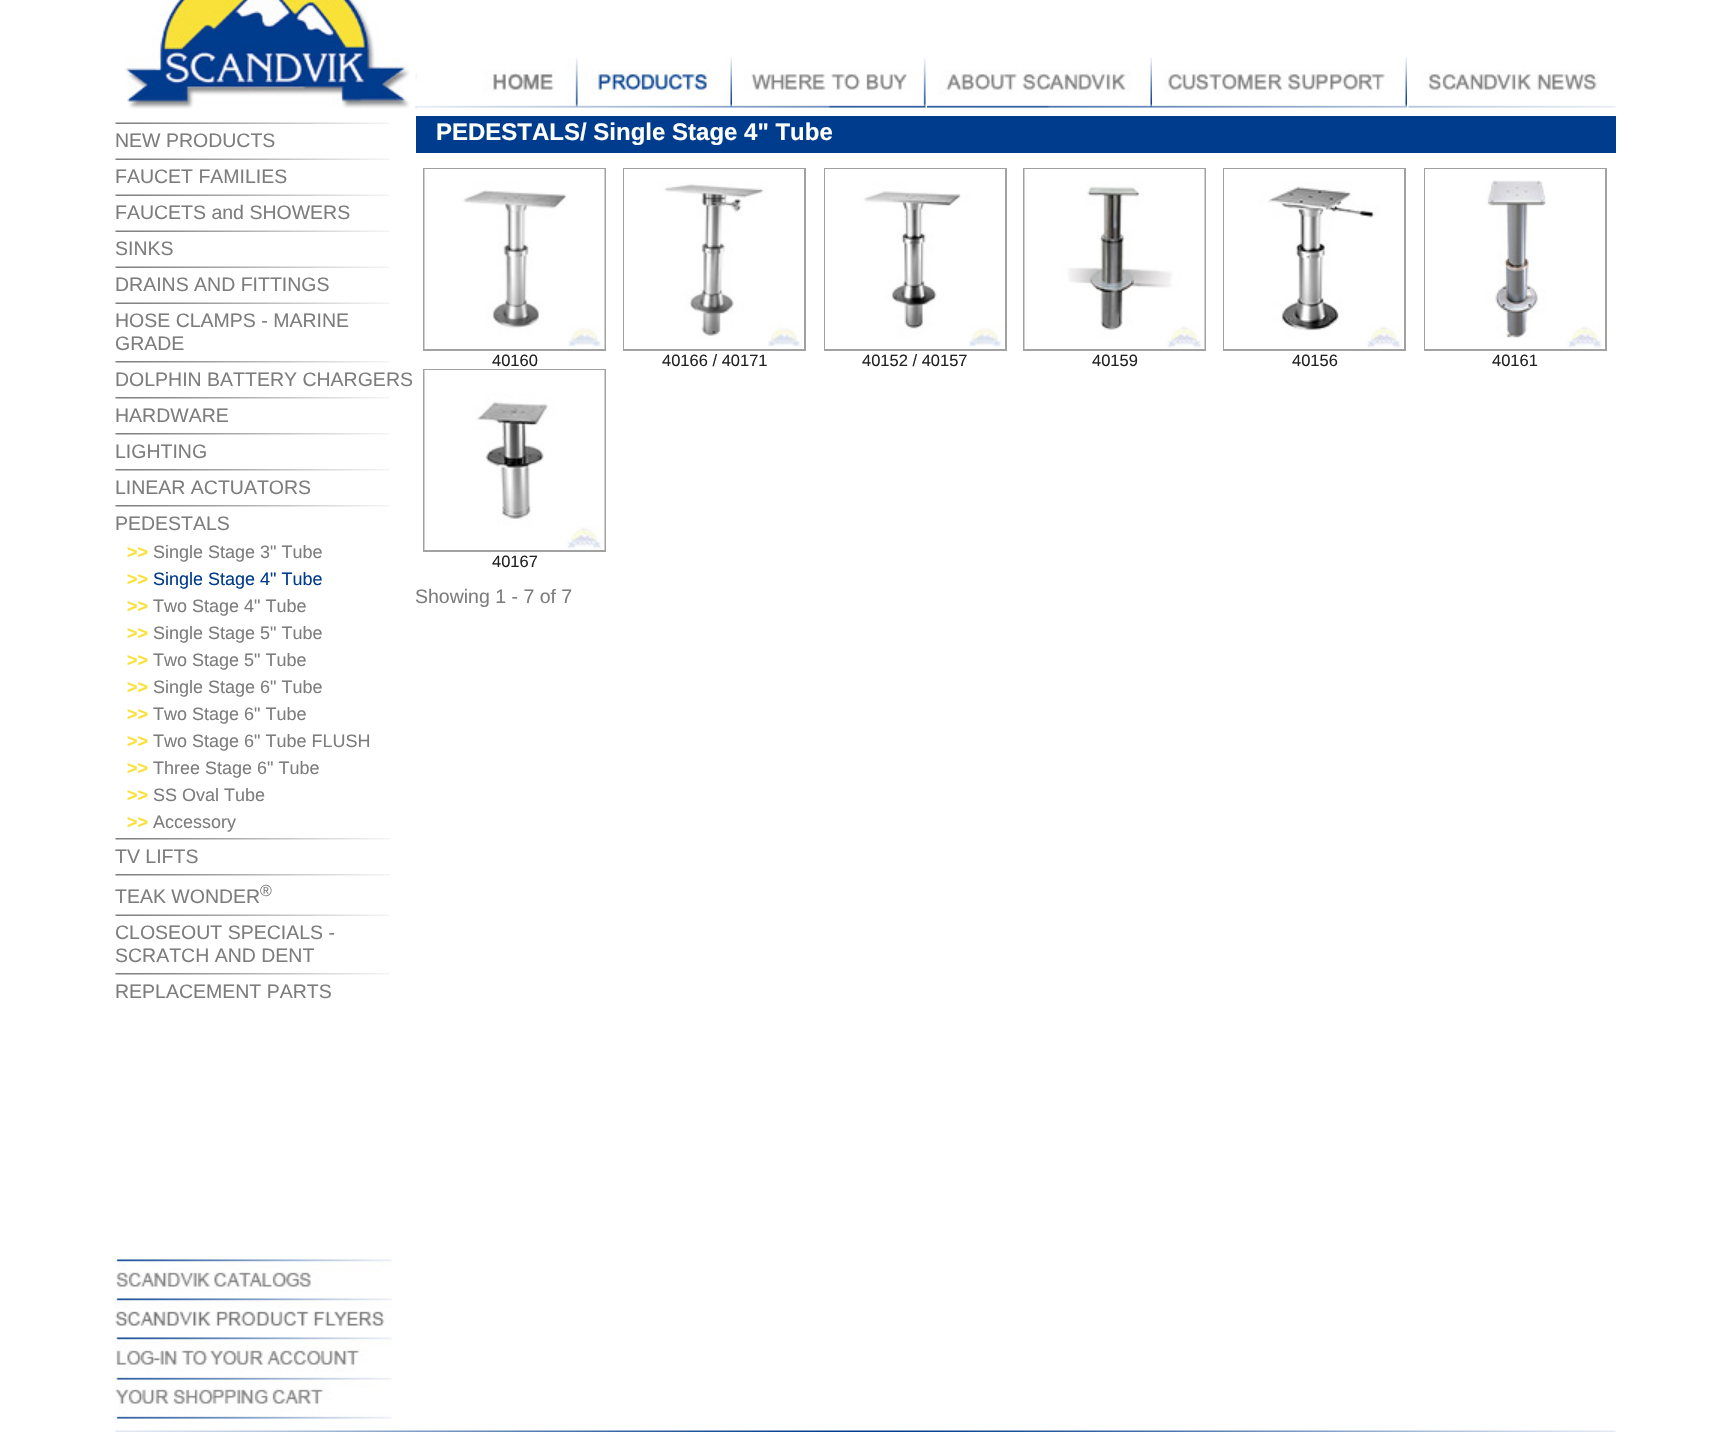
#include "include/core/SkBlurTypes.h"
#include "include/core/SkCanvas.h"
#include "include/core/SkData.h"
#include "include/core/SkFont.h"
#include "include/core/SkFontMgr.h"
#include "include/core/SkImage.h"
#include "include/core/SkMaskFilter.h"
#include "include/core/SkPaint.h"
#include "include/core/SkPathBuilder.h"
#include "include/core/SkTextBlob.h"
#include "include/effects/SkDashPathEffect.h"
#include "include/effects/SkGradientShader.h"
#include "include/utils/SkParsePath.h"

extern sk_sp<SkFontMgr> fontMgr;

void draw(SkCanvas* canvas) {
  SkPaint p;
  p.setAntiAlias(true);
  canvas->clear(SK_ColorWHITE);
  canvas->drawImageRect(SkImages::DeferredFromEncodedData(SkData::MakeFromFileName("images/1.png")), SkRect::MakeLTRB(124, 0, 410, 109), SkSamplingOptions());
  canvas->drawImageRect(SkImages::DeferredFromEncodedData(SkData::MakeFromFileName("images/2.png")), SkRect::MakeLTRB(415, 73, 471, 109), SkSamplingOptions());
  canvas->drawImageRect(SkImages::DeferredFromEncodedData(SkData::MakeFromFileName("images/3.png")), SkRect::MakeLTRB(471, 58, 579, 108), SkSamplingOptions());
  canvas->drawImageRect(SkImages::DeferredFromEncodedData(SkData::MakeFromFileName("images/4.png")), SkRect::MakeLTRB(579, 58, 732, 108), SkSamplingOptions());
  canvas->drawImageRect(SkImages::DeferredFromEncodedData(SkData::MakeFromFileName("images/5.png")), SkRect::MakeLTRB(732, 58, 926, 108), SkSamplingOptions());
  canvas->drawImageRect(SkImages::DeferredFromEncodedData(SkData::MakeFromFileName("images/6.png")), SkRect::MakeLTRB(927, 58, 1152, 108), SkSamplingOptions());
  canvas->drawImageRect(SkImages::DeferredFromEncodedData(SkData::MakeFromFileName("images/7.png")), SkRect::MakeLTRB(1152, 58, 1407, 108), SkSamplingOptions());
  canvas->drawImageRect(SkImages::DeferredFromEncodedData(SkData::MakeFromFileName("images/8.png")), SkRect::MakeLTRB(1408, 70, 1616, 109), SkSamplingOptions());
  canvas->drawImageRect(SkImages::DeferredFromEncodedData(SkData::MakeFromFileName("images/9.png")), SkRect::MakeLTRB(115, 122, 390, 124), SkSamplingOptions());
  canvas->drawImageRect(SkImages::DeferredFromEncodedData(SkData::MakeFromFileName("images/9.png")), SkRect::MakeLTRB(115, 158, 390, 160), SkSamplingOptions());
  canvas->drawImageRect(SkImages::DeferredFromEncodedData(SkData::MakeFromFileName("images/9.png")), SkRect::MakeLTRB(115, 194, 390, 196), SkSamplingOptions());
  canvas->drawImageRect(SkImages::DeferredFromEncodedData(SkData::MakeFromFileName("images/9.png")), SkRect::MakeLTRB(115, 230, 390, 232), SkSamplingOptions());
  canvas->drawImageRect(SkImages::DeferredFromEncodedData(SkData::MakeFromFileName("images/9.png")), SkRect::MakeLTRB(115, 266, 390, 268), SkSamplingOptions());
  canvas->drawImageRect(SkImages::DeferredFromEncodedData(SkData::MakeFromFileName("images/9.png")), SkRect::MakeLTRB(115, 302, 390, 304), SkSamplingOptions());
  canvas->drawImageRect(SkImages::DeferredFromEncodedData(SkData::MakeFromFileName("images/10.png")), SkRect::MakeLTRB(115, 361, 390, 363), SkSamplingOptions());
  canvas->drawImageRect(SkImages::DeferredFromEncodedData(SkData::MakeFromFileName("images/10.png")), SkRect::MakeLTRB(115, 397, 390, 399), SkSamplingOptions());
  canvas->drawImageRect(SkImages::DeferredFromEncodedData(SkData::MakeFromFileName("images/10.png")), SkRect::MakeLTRB(115, 433, 390, 435), SkSamplingOptions());
  canvas->drawImageRect(SkImages::DeferredFromEncodedData(SkData::MakeFromFileName("images/10.png")), SkRect::MakeLTRB(115, 469, 390, 471), SkSamplingOptions());
  canvas->drawImageRect(SkImages::DeferredFromEncodedData(SkData::MakeFromFileName("images/10.png")), SkRect::MakeLTRB(115, 505, 390, 507), SkSamplingOptions());
  canvas->drawImageRect(SkImages::DeferredFromEncodedData(SkData::MakeFromFileName("images/10.png")), SkRect::MakeLTRB(115, 838, 390, 840), SkSamplingOptions());
  canvas->drawImageRect(SkImages::DeferredFromEncodedData(SkData::MakeFromFileName("images/10.png")), SkRect::MakeLTRB(115, 874, 390, 876), SkSamplingOptions());
  canvas->drawImageRect(SkImages::DeferredFromEncodedData(SkData::MakeFromFileName("images/9.png")), SkRect::MakeLTRB(115, 914, 390, 916), SkSamplingOptions());
  canvas->drawImageRect(SkImages::DeferredFromEncodedData(SkData::MakeFromFileName("images/10.png")), SkRect::MakeLTRB(115, 973, 390, 975), SkSamplingOptions());
  canvas->drawImageRect(SkImages::DeferredFromEncodedData(SkData::MakeFromFileName("images/11.png")), SkRect::MakeLTRB(115, 1259, 392, 1292), SkSamplingOptions());
  canvas->drawImageRect(SkImages::DeferredFromEncodedData(SkData::MakeFromFileName("images/12.png")), SkRect::MakeLTRB(115, 1298, 392, 1326), SkSamplingOptions());
  canvas->drawImageRect(SkImages::DeferredFromEncodedData(SkData::MakeFromFileName("images/13.png")), SkRect::MakeLTRB(115, 1337, 392, 1372), SkSamplingOptions());
  canvas->drawImageRect(SkImages::DeferredFromEncodedData(SkData::MakeFromFileName("images/14.png")), SkRect::MakeLTRB(115, 1376, 392, 1419), SkSamplingOptions());
  p.setColor(SkColorSetRGB(0, 60, 141));
  canvas->drawRect(SkRect::MakeLTRB(416, 116, 1616, 153), p);
  p.setStyle(SkPaint::kStroke_Style);
  p.setStrokeWidth(2);
  p.setColor(SkColorSetRGB(161, 161, 161));
  canvas->drawRect(SkRect::MakeLTRB(424, 169, 605, 350), p);
  canvas->drawImageRect(SkImages::DeferredFromEncodedData(SkData::MakeFromFileName("images/15.png")), SkRect::MakeLTRB(424, 169, 605, 349), SkSamplingOptions());
  canvas->drawRect(SkRect::MakeLTRB(624, 169, 805, 350), p);
  canvas->drawImageRect(SkImages::DeferredFromEncodedData(SkData::MakeFromFileName("images/16.png")), SkRect::MakeLTRB(624, 169, 804, 349), SkSamplingOptions());
  canvas->drawRect(SkRect::MakeLTRB(825, 169, 1006, 350), p);
  canvas->drawImageRect(SkImages::DeferredFromEncodedData(SkData::MakeFromFileName("images/17.png")), SkRect::MakeLTRB(825, 169, 1005, 349), SkSamplingOptions());
  canvas->drawRect(SkRect::MakeLTRB(1024, 169, 1205, 350), p);
  canvas->drawImageRect(SkImages::DeferredFromEncodedData(SkData::MakeFromFileName("images/18.png")), SkRect::MakeLTRB(1024, 169, 1205, 349), SkSamplingOptions());
  canvas->drawRect(SkRect::MakeLTRB(1224, 169, 1405, 350), p);
  canvas->drawImageRect(SkImages::DeferredFromEncodedData(SkData::MakeFromFileName("images/19.png")), SkRect::MakeLTRB(1224, 169, 1404, 349), SkSamplingOptions());
  canvas->drawRect(SkRect::MakeLTRB(1425, 169, 1606, 350), p);
  canvas->drawImageRect(SkImages::DeferredFromEncodedData(SkData::MakeFromFileName("images/20.png")), SkRect::MakeLTRB(1425, 169, 1605, 349), SkSamplingOptions());
  canvas->drawRect(SkRect::MakeLTRB(424, 370, 605, 551), p);
  canvas->drawImageRect(SkImages::DeferredFromEncodedData(SkData::MakeFromFileName("images/21.png")), SkRect::MakeLTRB(424, 370, 605, 550), SkSamplingOptions());
  canvas->drawImageRect(SkImages::DeferredFromEncodedData(SkData::MakeFromFileName("images/22.png")), SkRect::MakeLTRB(115, 1430, 1616, 1432), SkSamplingOptions());
  SkFont font1(fontMgr->matchFamilyStyle("Liberation Sans", SkFontStyle::Normal()), 19.5f);
  font1.setSubpixel(true);
  p.setStyle(SkPaint::kFill_Style);
  p.setColor(SkColorSetRGB(125, 125, 125));
  canvas->drawString("NEW PRODUCTS", 115, 147, font1, p);
  canvas->drawString("FAUCET FAMILIES", 115, 183, font1, p);
  canvas->drawString("FAUCETS and SHOWERS", 115, 219, font1, p);
  canvas->drawString("SINKS", 115, 255, font1, p);
  canvas->drawString("DRAINS AND FITTINGS", 115, 291, font1, p);
  canvas->drawString("HOSE CLAMPS - MARINE", 115, 327, font1, p);
  canvas->drawString("GRADE", 115, 350, font1, p);
  canvas->drawString("DOLPHIN BATTERY CHARGERS", 115, 386, font1, p);
  canvas->drawString("HARDWARE", 115, 422, font1, p);
  canvas->drawString("LIGHTING", 115, 458, font1, p);
  canvas->drawString("LINEAR ACTUATORS", 115, 494, font1, p);
  canvas->drawString("PEDESTALS", 115, 530, font1, p);
  SkFont font2(fontMgr->matchFamilyStyle("Liberation Sans", SkFontStyle::Bold()), 18);
  font2.setSubpixel(true);
  p.setColor(SkColorSetRGB(249, 225, 57));
  canvas->drawString(">>", 127, 558, font2, p);
  SkFont font3(fontMgr->matchFamilyStyle("Liberation Sans", SkFontStyle::Normal()), 18);
  font3.setSubpixel(true);
  p.setColor(SkColorSetRGB(125, 125, 125));
  canvas->drawString("Single Stage 3\" Tube", 153, 558, font3, p);
  p.setColor(SkColorSetRGB(249, 225, 57));
  canvas->drawString(">>", 127, 585, font2, p);
  p.setColor(SkColorSetRGB(0, 60, 141));
  canvas->drawString("Single Stage 4\" Tube", 153, 585, font3, p);
  p.setColor(SkColorSetRGB(249, 225, 57));
  canvas->drawString(">>", 127, 612, font2, p);
  p.setColor(SkColorSetRGB(125, 125, 125));
  canvas->drawString("Two Stage 4\" Tube", 153, 612, font3, p);
  p.setColor(SkColorSetRGB(249, 225, 57));
  canvas->drawString(">>", 127, 639, font2, p);
  p.setColor(SkColorSetRGB(125, 125, 125));
  canvas->drawString("Single Stage 5\" Tube", 153, 639, font3, p);
  p.setColor(SkColorSetRGB(249, 225, 57));
  canvas->drawString(">>", 127, 666, font2, p);
  p.setColor(SkColorSetRGB(125, 125, 125));
  canvas->drawString("Two Stage 5\" Tube", 153, 666, font3, p);
  p.setColor(SkColorSetRGB(249, 225, 57));
  canvas->drawString(">>", 127, 693, font2, p);
  p.setColor(SkColorSetRGB(125, 125, 125));
  canvas->drawString("Single Stage 6\" Tube", 153, 693, font3, p);
  p.setColor(SkColorSetRGB(249, 225, 57));
  canvas->drawString(">>", 127, 720, font2, p);
  p.setColor(SkColorSetRGB(125, 125, 125));
  canvas->drawString("Two Stage 6\" Tube", 153, 720, font3, p);
  p.setColor(SkColorSetRGB(249, 225, 57));
  canvas->drawString(">>", 127, 747, font2, p);
  p.setColor(SkColorSetRGB(125, 125, 125));
  canvas->drawString("Two Stage 6\" Tube FLUSH", 153, 747, font3, p);
  p.setColor(SkColorSetRGB(249, 225, 57));
  canvas->drawString(">>", 127, 774, font2, p);
  p.setColor(SkColorSetRGB(125, 125, 125));
  canvas->drawString("Three Stage 6\" Tube", 153, 774, font3, p);
  p.setColor(SkColorSetRGB(249, 225, 57));
  canvas->drawString(">>", 127, 801, font2, p);
  p.setColor(SkColorSetRGB(125, 125, 125));
  canvas->drawString("SS Oval Tube", 153, 801, font3, p);
  p.setColor(SkColorSetRGB(249, 225, 57));
  canvas->drawString(">>", 127, 828, font2, p);
  p.setColor(SkColorSetRGB(125, 125, 125));
  canvas->drawString("Accessory", 153, 828, font3, p);
  canvas->drawString("TV LIFTS", 115, 863, font1, p);
  canvas->drawString("TEAK WONDER", 115, 903, font1, p);
  SkFont font4(fontMgr->matchFamilyStyle("Liberation Sans", SkFontStyle::Normal()), 16);
  font4.setSubpixel(true);
  canvas->drawString("®", 260, 896, font4, p);
  canvas->drawString("CLOSEOUT SPECIALS -", 115, 939, font1, p);
  canvas->drawString("SCRATCH AND DENT", 115, 962, font1, p);
  canvas->drawString("REPLACEMENT PARTS", 115, 998, font1, p);
  SkFont font5(fontMgr->matchFamilyStyle("Liberation Sans", SkFontStyle::Bold()), 24);
  font5.setSubpixel(true);
  p.setColor(SkColorSetRGB(255, 255, 250));
  canvas->drawString("PEDESTALS/ Single Stage 4\" Tube", 436, 140, font5, p);
  SkFont font6(fontMgr->matchFamilyStyle("Liberation Sans", SkFontStyle::Normal()), 16.5f);
  font6.setSubpixel(true);
  p.setColor(SkColorSetRGB(34, 34, 34));
  canvas->drawString("40160", 492, 366, font6, p);
  canvas->drawString("40166 / 40171", 662, 366, font6, p);
  canvas->drawString("40152 / 40157", 862, 366, font6, p);
  canvas->drawString("40159", 1092, 366, font6, p);
  canvas->drawString("40156", 1292, 366, font6, p);
  canvas->drawString("40161", 1492, 366, font6, p);
  canvas->drawString("40167", 492, 567, font6, p);
  p.setColor(SkColorSetRGB(125, 125, 125));
  canvas->drawString("Showing 1 - 7 of 7", 415, 603, font1, p);
}
